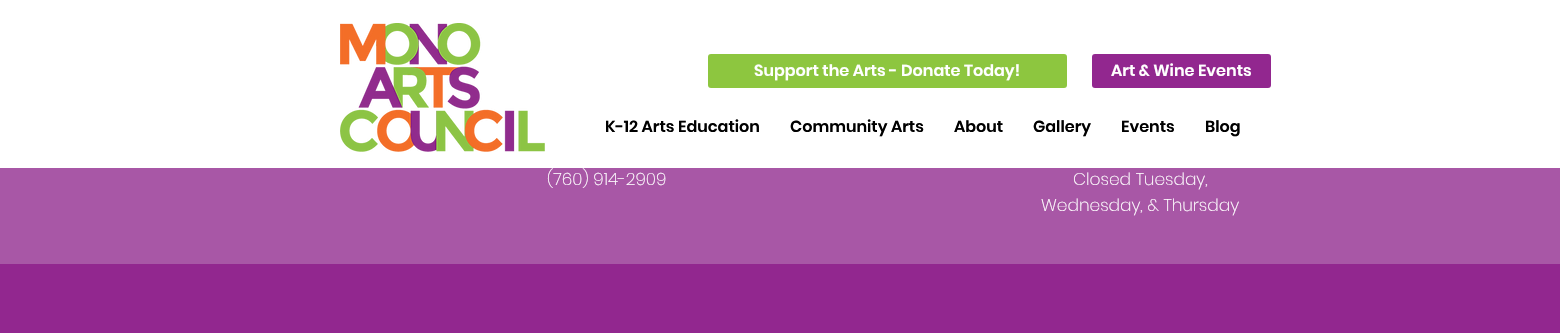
#include "include/core/SkBlurTypes.h"
#include "include/core/SkCanvas.h"
#include "include/core/SkData.h"
#include "include/core/SkFont.h"
#include "include/core/SkFontMgr.h"
#include "include/core/SkImage.h"
#include "include/core/SkMaskFilter.h"
#include "include/core/SkPaint.h"
#include "include/core/SkPathBuilder.h"
#include "include/core/SkTextBlob.h"
#include "include/effects/SkDashPathEffect.h"
#include "include/effects/SkGradientShader.h"
#include "include/utils/SkParsePath.h"

extern sk_sp<SkFontMgr> fontMgr;

void draw(SkCanvas* canvas) {
  SkPaint p;
  p.setAntiAlias(true);
  canvas->clear(SkColorSetRGB(146, 39, 143));
  p.setColor(SK_ColorWHITE);
  canvas->drawRect(SkRect::MakeLTRB(0, 0, 1560, 168), p);
  canvas->drawImageRect(SkImages::DeferredFromEncodedData(SkData::MakeFromFileName("images/1.png")), SkRect::MakeLTRB(340, 23, 545, 152), SkSamplingOptions());
  p.setColor(SkColorSetRGB(141, 198, 63));
  canvas->drawRoundRect(SkRect::MakeLTRB(708, 54, 1067, 88), 3, 3, p);
  p.setColor(SkColorSetRGB(146, 39, 143));
  canvas->drawRoundRect(SkRect::MakeLTRB(1092, 54, 1271, 88), 3, 3, p);
  p.setColor(SkColorSetRGB(168, 87, 166));
  canvas->drawRect(SkRect::MakeLTRB(0, 168, 1560, 264), p);
  SkFont font1(fontMgr->matchFamilyStyle("Poppins", SkFontStyle(600, SkFontStyle::kNormal_Width, SkFontStyle::kUpright_Slant)), 16);
  font1.setSubpixel(true);
  p.setColor(SK_ColorWHITE);
  canvas->drawString("Support the Arts - Donate Today!", 754, 76, font1, p);
  canvas->drawString("Art & Wine Events", 1111, 76, font1, p);
  p.setColor(SK_ColorBLACK);
  canvas->drawString("K-12 Arts Education", 605, 132, font1, p);
  canvas->drawString("Community Arts", 790, 132, font1, p);
  canvas->drawString("About", 954, 132, font1, p);
  canvas->drawString("Gallery", 1033, 132, font1, p);
  canvas->drawString("Events", 1121, 132, font1, p);
  canvas->drawString("Blog", 1205, 132, font1, p);
  SkFont font2(fontMgr->matchFamilyStyle("Poppins", SkFontStyle(200, SkFontStyle::kNormal_Width, SkFontStyle::kUpright_Slant)), 17);
  font2.setSubpixel(true);
  p.setColor(SK_ColorWHITE);
  canvas->drawString("(760) 914-2909", 547, 185, font2, p);
  canvas->drawString("Closed Tuesday,", 1073, 185, font2, p);
  canvas->drawString("Wednesday, & Thursday", 1041, 211, font2, p);
}
